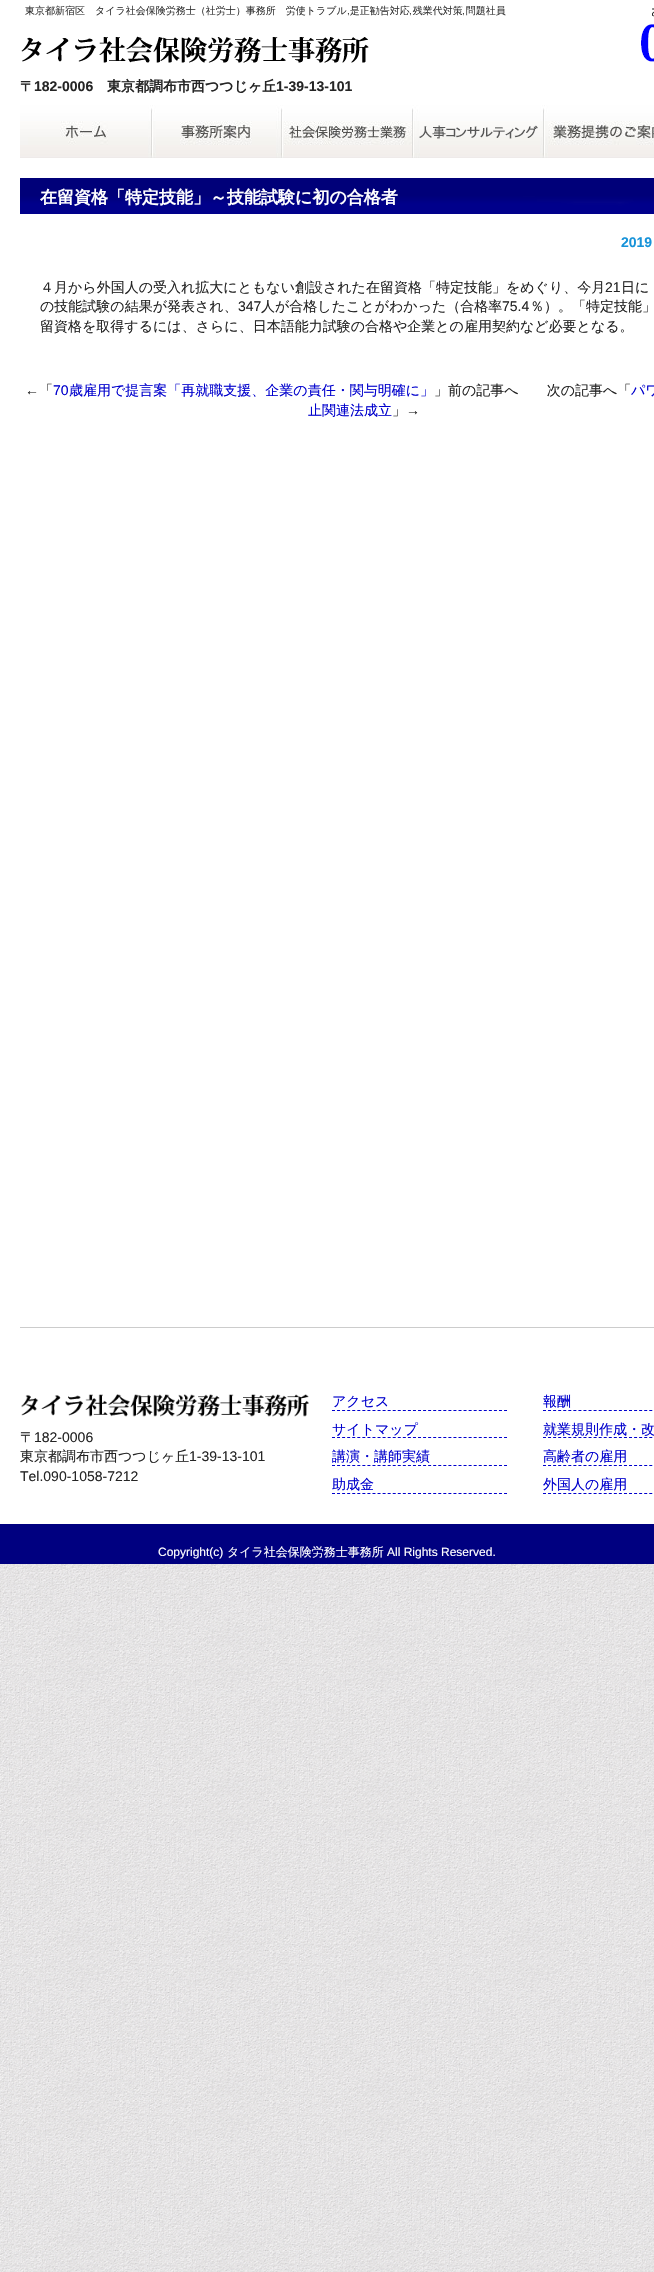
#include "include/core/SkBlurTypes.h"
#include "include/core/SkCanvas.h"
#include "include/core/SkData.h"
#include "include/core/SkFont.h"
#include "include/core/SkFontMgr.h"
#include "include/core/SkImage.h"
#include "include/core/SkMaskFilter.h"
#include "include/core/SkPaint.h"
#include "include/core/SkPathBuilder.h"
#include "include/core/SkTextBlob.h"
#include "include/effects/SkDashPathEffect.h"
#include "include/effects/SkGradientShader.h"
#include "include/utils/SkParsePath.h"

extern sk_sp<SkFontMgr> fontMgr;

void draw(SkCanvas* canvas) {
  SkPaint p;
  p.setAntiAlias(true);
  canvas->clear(SK_ColorWHITE);
  canvas->drawImageRect(SkImages::DeferredFromEncodedData(SkData::MakeFromFileName("images/1.png")), SkRect::MakeLTRB(0, 1564, 654, 2272), SkSamplingOptions());
  canvas->drawImageRect(SkImages::DeferredFromEncodedData(SkData::MakeFromFileName("images/2.png")), SkRect::MakeLTRB(641, 8, 654, 62), SkSamplingOptions());
  canvas->drawImageRect(SkImages::DeferredFromEncodedData(SkData::MakeFromFileName("images/3.png")), SkRect::MakeLTRB(21, 36, 369, 63), SkSamplingOptions());
  canvas->drawImageRect(SkImages::DeferredFromEncodedData(SkData::MakeFromFileName("images/4.png")), SkRect::MakeLTRB(20, 105, 654, 158), SkSamplingOptions());
  canvas->drawImageRect(SkImages::DeferredFromEncodedData(SkData::MakeFromFileName("images/5.png")), SkRect::MakeLTRB(20, 178, 654, 214), SkSamplingOptions());
  p.setColor(SkColorSetRGB(204, 204, 204));
  canvas->drawRect(SkRect::MakeLTRB(20, 1327, 654, 1328), p);
  canvas->drawImageRect(SkImages::DeferredFromEncodedData(SkData::MakeFromFileName("images/6.png")), SkRect::MakeLTRB(21, 1394, 309, 1417), SkSamplingOptions());
  p.setStyle(SkPaint::kStroke_Style);
  p.setStrokeWidth(1);
  p.setColor(SkColorSetRGB(0, 0, 205));
  p.setPathEffect(SkDashPathEffect::Make({{3, 2.06f}}, 0));
  canvas->drawPath(SkPathBuilder().moveTo(332, 1410.5f).lineTo(507, 1410.5f).detach(), p);
  p.setPathEffect(nullptr);
  p.setPathEffect(SkDashPathEffect::Make({{3, 2.06f}}, 0));
  canvas->drawPath(SkPathBuilder().moveTo(332, 1437.5f).lineTo(507, 1437.5f).detach(), p);
  p.setPathEffect(nullptr);
  p.setPathEffect(SkDashPathEffect::Make({{3, 2.06f}}, 0));
  canvas->drawPath(SkPathBuilder().moveTo(332, 1465.5f).lineTo(507, 1465.5f).detach(), p);
  p.setPathEffect(nullptr);
  p.setPathEffect(SkDashPathEffect::Make({{3, 2.06f}}, 0));
  canvas->drawPath(SkPathBuilder().moveTo(332, 1493.5f).lineTo(507, 1493.5f).detach(), p);
  p.setPathEffect(nullptr);
  p.setPathEffect(SkDashPathEffect::Make({{3, 2.06f}}, 0));
  canvas->drawPath(SkPathBuilder().moveTo(543, 1410.5f).lineTo(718, 1410.5f).detach(), p);
  p.setPathEffect(nullptr);
  p.setPathEffect(SkDashPathEffect::Make({{3, 2.06f}}, 0));
  canvas->drawPath(SkPathBuilder().moveTo(543, 1437.5f).lineTo(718, 1437.5f).detach(), p);
  p.setPathEffect(nullptr);
  p.setPathEffect(SkDashPathEffect::Make({{3, 2.06f}}, 0));
  canvas->drawPath(SkPathBuilder().moveTo(543, 1465.5f).lineTo(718, 1465.5f).detach(), p);
  p.setPathEffect(nullptr);
  p.setPathEffect(SkDashPathEffect::Make({{3, 2.06f}}, 0));
  canvas->drawPath(SkPathBuilder().moveTo(543, 1493.5f).lineTo(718, 1493.5f).detach(), p);
  p.setPathEffect(nullptr);
  p.setStyle(SkPaint::kFill_Style);
  p.setColor(SkColorSetRGB(0, 0, 128));
  canvas->drawRect(SkRect::MakeLTRB(0, 1524, 654, 1564), p);
  SkFont font1(fontMgr->matchFamilyStyle("WenQuanYi Zen Hei", SkFontStyle(500, SkFontStyle::kNormal_Width, SkFontStyle::kUpright_Slant)), 10);
  font1.setSubpixel(true);
  p.setColor(SkColorSetRGB(51, 51, 51));
  canvas->drawString("東京都新宿区　タイラ社会保険労務士（社労士）事務所　労使トラブル 是正勧告対応 残業代対策 問題社員", 25, 14, font1, p);
  SkFont font2(fontMgr->matchFamilyStyle("Liberation Sans", SkFontStyle::Normal()), 10);
  font2.setSubpixel(true);
  canvas->drawString(",", 347, 14, font2, p);
  canvas->drawString(",", 409, 14, font2, p);
  canvas->drawString(",", 462, 14, font2, p);
  SkFont font3(fontMgr->matchFamilyStyle("WenQuanYi Zen Hei", SkFontStyle::Bold()), 14);
  font3.setSubpixel(true);
  p.setColor(SkColorSetRGB(37, 37, 37));
  canvas->drawString("〒", 20, 91, font3, p);
  SkFont font4(fontMgr->matchFamilyStyle("Liberation Sans", SkFontStyle::Bold()), 14);
  font4.setSubpixel(true);
  canvas->drawString("182-0006", 34, 91, font4, p);
  canvas->drawString("東京都調布市西つつじヶ丘", 107, 91, font3, p);
  canvas->drawString("1-39-13-101", 276, 91, font4, p);
  SkFont font5(fontMgr->matchFamilyStyle("WenQuanYi Zen Hei", SkFontStyle::Bold()), 17);
  font5.setSubpixel(true);
  p.setColor(SK_ColorWHITE);
  canvas->drawString("在留資格「特定技能」～技能試験に初の合格者", 40, 203, font5, p);
  p.setColor(SkColorSetRGB(23, 147, 217));
  canvas->drawString("2019", 621, 247, font4, p);
  SkFont font6(fontMgr->matchFamilyStyle("WenQuanYi Zen Hei", SkFontStyle(500, SkFontStyle::kNormal_Width, SkFontStyle::kUpright_Slant)), 14);
  font6.setSubpixel(true);
  p.setColor(SkColorSetRGB(37, 37, 37));
  canvas->drawString("４月から外国人の受入れ拡大にともない創設された在留資格「特定技能」をめぐり、今月", 40, 292, font6, p);
  SkFont font7(fontMgr->matchFamilyStyle("Liberation Sans", SkFontStyle::Normal()), 14);
  font7.setSubpixel(true);
  canvas->drawString("21", 605, 292, font7, p);
  canvas->drawString("日に", 621, 292, font6, p);
  canvas->drawString("の技能試験の結果が発表され、", 40, 311, font6, p);
  canvas->drawString("347", 238, 311, font7, p);
  canvas->drawString("人が合格したことがわかった（合格率", 261, 311, font6, p);
  canvas->drawString("75.4", 502, 311, font7, p);
  canvas->drawString("％）。「特定技能」", 530, 311, font6, p);
  canvas->drawString("留資格を取得するには、さらに、日本語能力試験の合格や企業との雇用契約など必要となる。", 40, 331, font6, p);
  canvas->drawString("←", 25, 395, font7, p);
  canvas->drawString("「", 39, 395, font6, p);
  p.setColor(SkColorSetRGB(0, 0, 205));
  canvas->drawString("70", 53, 395, font7, p);
  canvas->drawString("歳雇用で提言案「再就職支援、企業の責任・関与明確に」", 69, 395, font6, p);
  p.setColor(SkColorSetRGB(37, 37, 37));
  canvas->drawString("」前の記事へ　　次の記事へ「", 434, 395, font6, p);
  p.setColor(SkColorSetRGB(0, 0, 205));
  canvas->drawString("パワ", 631, 395, font6, p);
  canvas->drawString("止関連法成立", 308, 415, font6, p);
  p.setColor(SkColorSetRGB(37, 37, 37));
  canvas->drawString("」", 392, 415, font6, p);
  canvas->drawString("→", 406, 415, font7, p);
  canvas->drawString("〒", 20, 1442, font6, p);
  canvas->drawString("182-0006", 34, 1442, font7, p);
  canvas->drawString("東京都調布市西つつじヶ丘", 20, 1461, font6, p);
  canvas->drawString("1-39-13-101", 189, 1461, font7, p);
  canvas->drawString("Tel.090-1058-7212", 20, 1481, font7, p);
  p.setColor(SkColorSetRGB(0, 0, 205));
  canvas->drawString("アクセス", 332, 1406, font6, p);
  canvas->drawString("サイトマップ", 332, 1434, font6, p);
  canvas->drawString("講演・講師実績", 332, 1461, font6, p);
  canvas->drawString("助成金", 332, 1489, font6, p);
  canvas->drawString("報酬", 543, 1406, font6, p);
  canvas->drawString("就業規則作成・改", 543, 1434, font6, p);
  canvas->drawString("高齢者の雇用", 543, 1461, font6, p);
  canvas->drawString("外国人の雇用", 543, 1489, font6, p);
  SkFont font8(fontMgr->matchFamilyStyle("Liberation Sans", SkFontStyle::Normal()), 12);
  font8.setSubpixel(true);
  p.setColor(SK_ColorWHITE);
  canvas->drawString("Copyright(c)", 158, 1556, font8, p);
  SkFont font9(fontMgr->matchFamilyStyle("WenQuanYi Zen Hei", SkFontStyle(500, SkFontStyle::kNormal_Width, SkFontStyle::kUpright_Slant)), 12);
  font9.setSubpixel(true);
  canvas->drawString("タイラ社会保険労務士事務所", 227, 1556, font9, p);
  canvas->drawString("All Rights Reserved.", 387, 1556, font8, p);
}
